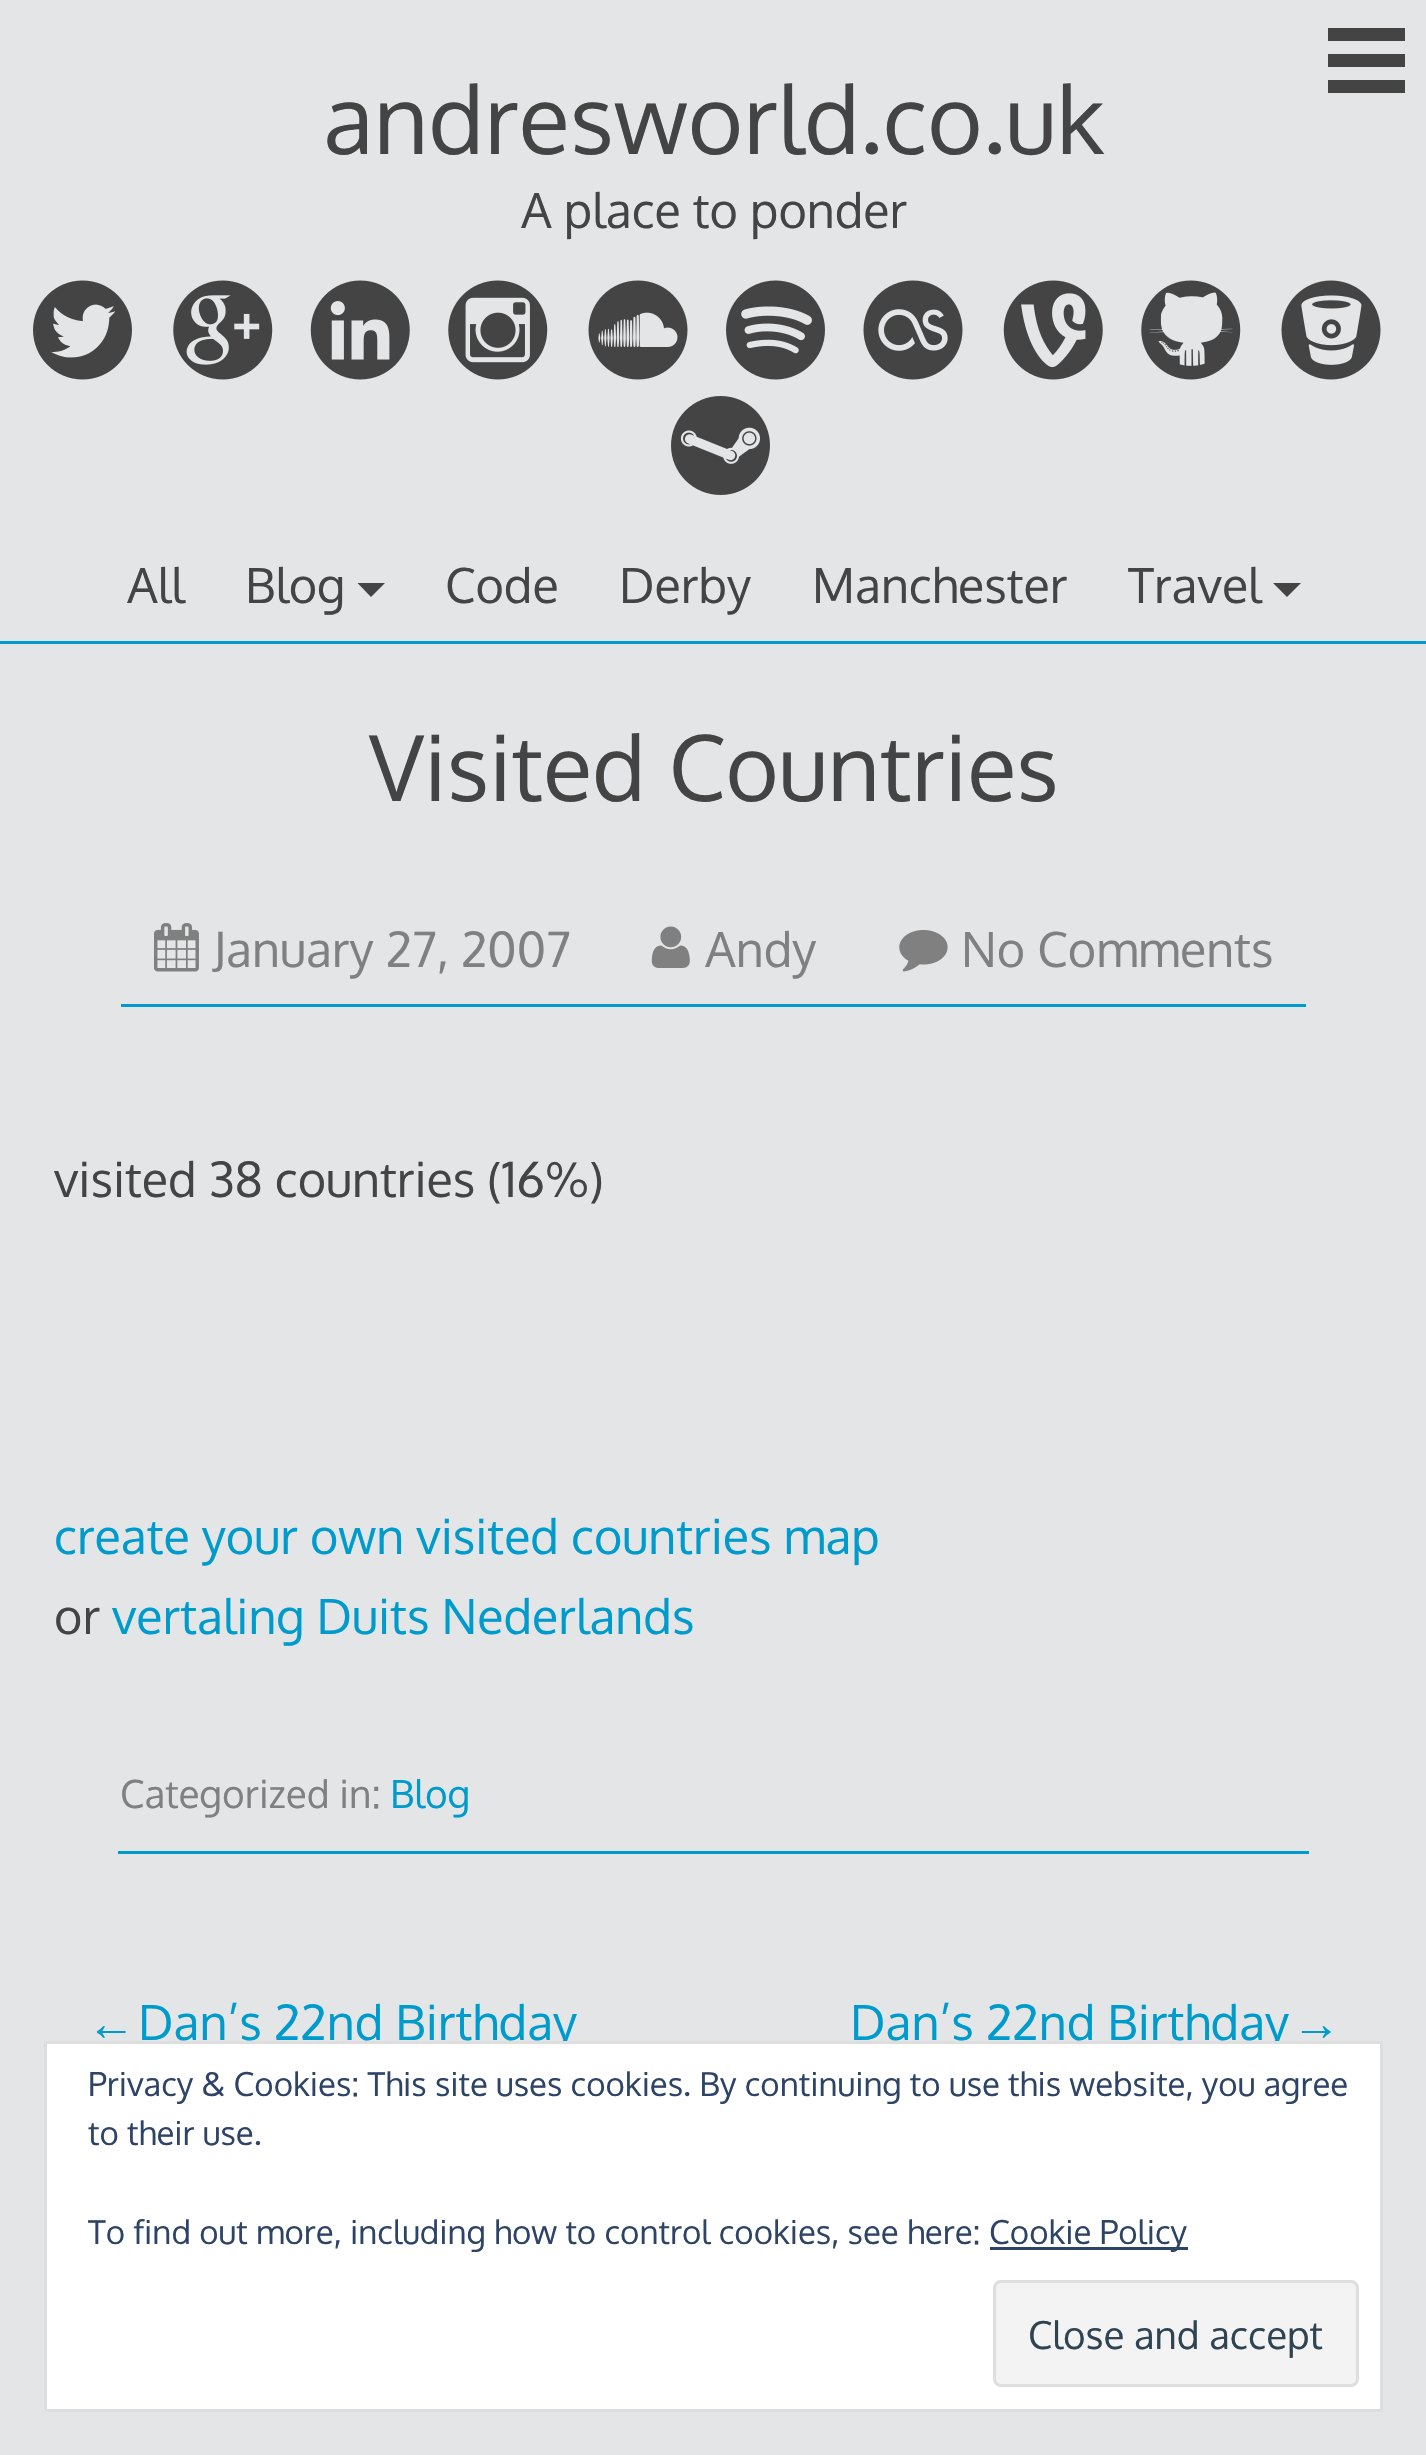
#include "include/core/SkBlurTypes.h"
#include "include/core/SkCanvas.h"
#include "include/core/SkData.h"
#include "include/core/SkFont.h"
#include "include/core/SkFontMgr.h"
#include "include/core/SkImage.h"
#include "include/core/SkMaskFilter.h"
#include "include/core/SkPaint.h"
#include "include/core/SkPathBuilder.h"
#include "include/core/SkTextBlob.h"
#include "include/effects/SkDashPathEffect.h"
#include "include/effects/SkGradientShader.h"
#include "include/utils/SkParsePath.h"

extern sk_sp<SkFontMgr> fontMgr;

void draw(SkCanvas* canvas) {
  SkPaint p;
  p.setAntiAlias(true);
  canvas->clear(SkColorSetRGB(227, 229, 231));
  p.setColor(SkColorSetRGB(68, 68, 68));
  canvas->drawRect(SkRect::MakeLTRB(1328, 28, 1405, 41), p);
  canvas->drawRect(SkRect::MakeLTRB(1328, 54, 1405, 67), p);
  canvas->drawRect(SkRect::MakeLTRB(1328, 80, 1405, 93), p);
  p.setColor(SkColorSetRGB(0, 155, 205));
  canvas->drawRect(SkRect::MakeLTRB(0, 641, 1426, 644), p);
  canvas->drawImageRect(SkImages::DeferredFromEncodedData(SkData::MakeFromFileName("images/1.png")), SkRect::MakeLTRB(33, 280, 132, 380), SkSamplingOptions());
  canvas->drawImageRect(SkImages::DeferredFromEncodedData(SkData::MakeFromFileName("images/2.png")), SkRect::MakeLTRB(173, 280, 273, 380), SkSamplingOptions());
  canvas->drawImageRect(SkImages::DeferredFromEncodedData(SkData::MakeFromFileName("images/3.png")), SkRect::MakeLTRB(310, 280, 410, 380), SkSamplingOptions());
  canvas->drawImageRect(SkImages::DeferredFromEncodedData(SkData::MakeFromFileName("images/4.png")), SkRect::MakeLTRB(448, 280, 548, 380), SkSamplingOptions());
  canvas->drawImageRect(SkImages::DeferredFromEncodedData(SkData::MakeFromFileName("images/5.png")), SkRect::MakeLTRB(588, 280, 688, 380), SkSamplingOptions());
  canvas->drawImageRect(SkImages::DeferredFromEncodedData(SkData::MakeFromFileName("images/6.png")), SkRect::MakeLTRB(726, 280, 825, 380), SkSamplingOptions());
  canvas->drawImageRect(SkImages::DeferredFromEncodedData(SkData::MakeFromFileName("images/7.png")), SkRect::MakeLTRB(863, 280, 963, 380), SkSamplingOptions());
  canvas->drawImageRect(SkImages::DeferredFromEncodedData(SkData::MakeFromFileName("images/8.png")), SkRect::MakeLTRB(1003, 280, 1103, 380), SkSamplingOptions());
  canvas->drawImageRect(SkImages::DeferredFromEncodedData(SkData::MakeFromFileName("images/9.png")), SkRect::MakeLTRB(1141, 280, 1241, 380), SkSamplingOptions());
  canvas->drawImageRect(SkImages::DeferredFromEncodedData(SkData::MakeFromFileName("images/10.png")), SkRect::MakeLTRB(1281, 280, 1381, 380), SkSamplingOptions());
  canvas->drawImageRect(SkImages::DeferredFromEncodedData(SkData::MakeFromFileName("images/11.png")), SkRect::MakeLTRB(671, 396, 770, 495), SkSamplingOptions());
  p.setColor(SkColorSetRGB(68, 68, 68));
  canvas->drawPath(SkPathBuilder().moveTo(357.5f, 583).lineTo(385, 583).lineTo(371, 597).close().detach(), p);
  canvas->drawPath(SkPathBuilder().moveTo(1273, 583).lineTo(1301, 583).lineTo(1287, 597).close().detach(), p);
  p.setColor(SkColorSetRGB(0, 155, 205));
  canvas->drawRect(SkRect::MakeLTRB(121, 1004, 1306, 1007), p);
  canvas->drawImageRect(SkImages::DeferredFromEncodedData(SkData::MakeFromFileName("images/12.png")), SkRect::MakeLTRB(154, 923, 199, 972), SkSamplingOptions());
  canvas->drawImageRect(SkImages::DeferredFromEncodedData(SkData::MakeFromFileName("images/13.png")), SkRect::MakeLTRB(651, 926, 690, 968), SkSamplingOptions());
  canvas->drawImageRect(SkImages::DeferredFromEncodedData(SkData::MakeFromFileName("images/14.png")), SkRect::MakeLTRB(899, 929, 948, 972), SkSamplingOptions());
  canvas->drawRect(SkRect::MakeLTRB(118, 1851, 1309, 1854), p);
  SkFont font1(fontMgr->matchFamilyStyle("Oxygen", SkFontStyle::Normal()), 94.5f);
  font1.setSubpixel(true);
  p.setColor(SkColorSetRGB(68, 68, 68));
  canvas->drawString("andresworld.co.uk", 323, 154, font1, p);
  SkFont font2(fontMgr->matchFamilyStyle("Oxygen", SkFontStyle::Normal()), 48.4f);
  font2.setSubpixel(true);
  canvas->drawString("A place to ponder", 521, 228, font2, p);
  canvas->drawString("All", 127, 603, font2, p);
  canvas->drawString("Blog", 245, 603, font2, p);
  canvas->drawString("Code", 445, 603, font2, p);
  canvas->drawString("Derby", 619, 603, font2, p);
  canvas->drawString("Manchester", 812, 603, font2, p);
  canvas->drawString("Travel", 1128, 603, font2, p);
  SkFont font3(fontMgr->matchFamilyStyle("Oxygen", SkFontStyle::Normal()), 90.75f);
  font3.setSubpixel(true);
  canvas->drawString("Visited Countries", 369, 801, font3, p);
  p.setColor(SkColorSetRGB(128, 128, 128));
  canvas->drawString("January 27, 2007", 213, 967, font2, p);
  canvas->drawString("Andy", 705, 967, font2, p);
  canvas->drawString("No Comments", 961, 967, font2, p);
  p.setColor(SkColorSetRGB(68, 68, 68));
  canvas->drawString("visited 38 countries (16%)", 54, 1197, font2, p);
  p.setColor(SkColorSetRGB(0, 155, 205));
  canvas->drawString("create your own visited countries map", 54, 1554, font2, p);
  p.setColor(SkColorSetRGB(68, 68, 68));
  canvas->drawString("or", 54, 1634, font2, p);
  p.setColor(SkColorSetRGB(0, 155, 205));
  canvas->drawString("vertaling Duits Nederlands", 112, 1634, font2, p);
  SkFont font4(fontMgr->matchFamilyStyle("Oxygen", SkFontStyle::Normal()), 38.75f);
  font4.setSubpixel(true);
  p.setColor(SkColorSetRGB(128, 128, 128));
  canvas->drawString("Categorized in:", 120, 1808, font4, p);
  p.setColor(SkColorSetRGB(0, 155, 205));
  canvas->drawString("Blog", 390, 1808, font4, p);
  SkFont font5(fontMgr->matchFamilyStyle("Liberation Sans", SkFontStyle::Normal()), 48.4f);
  font5.setSubpixel(true);
  canvas->drawString("←", 87, 2040, font5, p);
  canvas->drawString("Dan’s 22nd Birthday", 138, 2040, font2, p);
  canvas->drawString("Dan’s 22nd Birthday", 850, 2040, font2, p);
  canvas->drawString("→", 1292, 2040, font5, p);
  p.setColor(SK_ColorWHITE);
  canvas->drawRect(SkRect::MakeLTRB(45.5f, 2042.5f, 1381.5f, 2410.5f), p);
  p.setStyle(SkPaint::kStroke_Style);
  p.setStrokeWidth(3);
  p.setColor(SkColorSetRGB(222, 222, 222));
  canvas->drawRect(SkRect::MakeLTRB(45.5f, 2042.5f, 1381.5f, 2410.5f), p);
  SkFont font6(fontMgr->matchFamilyStyle("Oxygen", SkFontStyle::Normal()), 33);
  font6.setSubpixel(true);
  p.setStyle(SkPaint::kFill_Style);
  p.setColor(SkColorSetRGB(46, 68, 103));
  canvas->drawString("Privacy & Cookies: This site uses cookies. By continuing to use this website, you agree", 88, 2096, font6, p);
  canvas->drawString("to their use.", 88, 2145, font6, p);
  canvas->drawString("To find out more, including how to control cookies, see here:", 88, 2244, font6, p);
  canvas->drawRect(SkRect::MakeLTRB(990, 2247, 1188, 2250), p);
  canvas->drawString("Cookie Policy", 989, 2244, font6, p);
  p.setColor(SkColorSetRGB(243, 243, 243));
  canvas->drawRoundRect(SkRect::MakeLTRB(994.5f, 2281.5f, 1357.5f, 2385.5f), 6.5f, 6.5f, p);
  p.setStyle(SkPaint::kStroke_Style);
  p.setColor(SkColorSetRGB(222, 222, 222));
  canvas->drawRoundRect(SkRect::MakeLTRB(994.5f, 2281.5f, 1357.5f, 2385.5f), 6.5f, 6.5f, p);
  SkFont font7(fontMgr->matchFamilyStyle("Oxygen", SkFontStyle::Normal()), 38.5f);
  font7.setSubpixel(true);
  p.setStyle(SkPaint::kFill_Style);
  p.setColor(SkColorSetRGB(46, 68, 83));
  canvas->drawString("Close and accept", 1028, 2349, font7, p);
}
